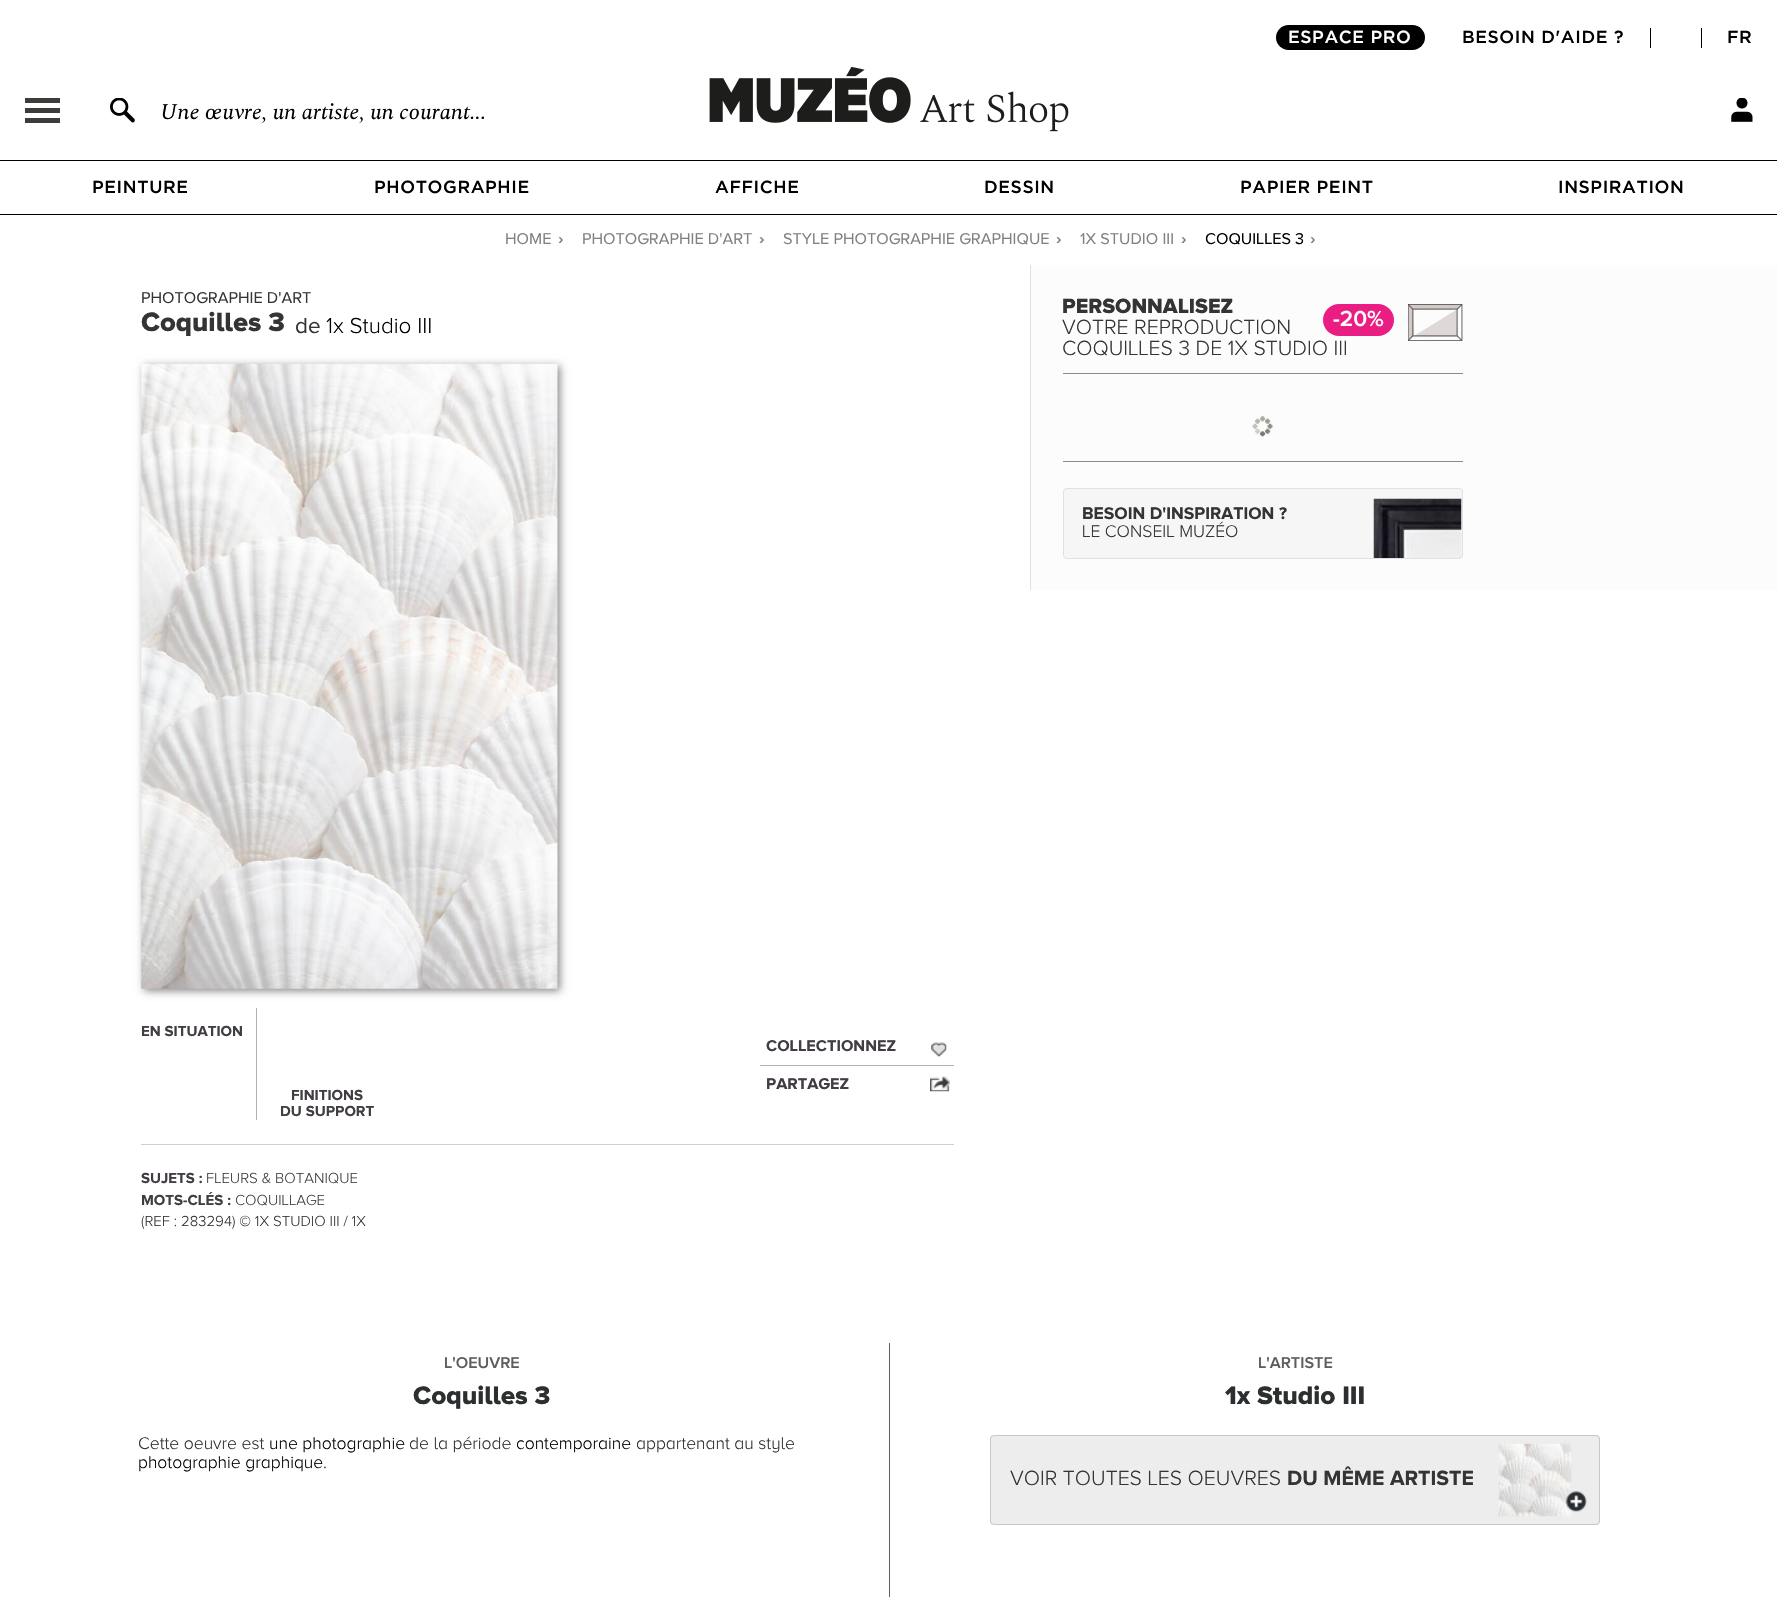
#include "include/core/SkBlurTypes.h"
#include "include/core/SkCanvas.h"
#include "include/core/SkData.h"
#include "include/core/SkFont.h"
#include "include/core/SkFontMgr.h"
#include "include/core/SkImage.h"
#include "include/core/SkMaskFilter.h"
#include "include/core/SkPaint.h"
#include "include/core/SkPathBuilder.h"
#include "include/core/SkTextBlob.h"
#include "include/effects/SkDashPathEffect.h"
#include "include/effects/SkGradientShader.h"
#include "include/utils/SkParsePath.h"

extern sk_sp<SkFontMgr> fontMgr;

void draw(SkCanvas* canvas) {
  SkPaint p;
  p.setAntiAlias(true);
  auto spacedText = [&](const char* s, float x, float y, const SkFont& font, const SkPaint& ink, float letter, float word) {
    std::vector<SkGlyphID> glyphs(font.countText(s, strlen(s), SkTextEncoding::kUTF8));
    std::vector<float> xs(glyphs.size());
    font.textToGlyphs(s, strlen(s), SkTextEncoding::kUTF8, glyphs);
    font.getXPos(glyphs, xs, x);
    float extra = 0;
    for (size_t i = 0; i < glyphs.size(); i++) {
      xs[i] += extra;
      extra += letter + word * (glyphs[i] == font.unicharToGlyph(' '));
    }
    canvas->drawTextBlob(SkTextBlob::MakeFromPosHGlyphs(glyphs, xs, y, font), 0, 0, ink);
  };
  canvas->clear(SK_ColorWHITE);
  p.setColor(SK_ColorBLACK);
  canvas->drawRoundRect(SkRect::MakeLTRB(1276, 25, 1425, 50), 12.5f, 12.5f, p);
  canvas->drawRect(SkRect::MakeLTRB(1650, 28, 1651, 48), p);
  canvas->drawRect(SkRect::MakeLTRB(1701, 28, 1702, 48), p);
  p.setColor(SkColorSetRGB(60, 60, 59));
  canvas->drawRect(SkRect::MakeLTRB(25, 98, 60, 103), p);
  canvas->drawRect(SkRect::MakeLTRB(25, 108, 60, 113), p);
  canvas->drawRect(SkRect::MakeLTRB(25, 118, 60, 123), p);
  canvas->drawImageRect(SkImages::DeferredFromEncodedData(SkData::MakeFromFileName("images/1.png")), SkRect::MakeLTRB(110, 98, 135, 123), SkSamplingOptions());
  canvas->drawImageRect(SkImages::DeferredFromEncodedData(SkData::MakeFromFileName("images/2.png")), SkRect::MakeLTRB(709, 66, 1069, 132), SkSamplingOptions());
  canvas->drawImageRect(SkImages::DeferredFromEncodedData(SkData::MakeFromFileName("images/3.png")), SkRect::MakeLTRB(1731, 98, 1753, 122), SkSamplingOptions());
  p.setColor(SK_ColorBLACK);
  canvas->drawRect(SkRect::MakeLTRB(0, 160, 1777, 161), p);
  canvas->drawRect(SkRect::MakeLTRB(0, 214, 1777, 215), p);
  p.setColor(SkColorSetRGB(136, 136, 136));
  p.setMaskFilter(SkMaskFilter::MakeBlur(kNormal_SkBlurStyle, 4));
  canvas->drawRect(SkRect::MakeLTRB(144, 366, 560, 991), p);
  p.setMaskFilter(nullptr);
  canvas->drawImageRect(SkImages::DeferredFromEncodedData(SkData::MakeFromFileName("images/4.png")), SkRect::MakeLTRB(141, 363, 558, 989), SkSamplingOptions());
  p.setColor(SkColorSetRGB(178, 178, 178));
  canvas->drawRect(SkRect::MakeLTRB(256, 1008, 257, 1120), p);
  canvas->drawImageRect(SkImages::DeferredFromEncodedData(SkData::MakeFromFileName("images/5.png")), SkRect::MakeLTRB(931, 1042, 947, 1057), SkSamplingOptions());
  canvas->drawRect(SkRect::MakeLTRB(760, 1065, 954, 1066), p);
  canvas->drawImageRect(SkImages::DeferredFromEncodedData(SkData::MakeFromFileName("images/6.png")), SkRect::MakeLTRB(930, 1076, 950, 1092), SkSamplingOptions());
  p.setColor(SkColorSetRGB(208, 208, 208));
  canvas->drawRect(SkRect::MakeLTRB(141, 1144, 954, 1145), p);
  p.setColor(SkColorSetRGB(252, 252, 252));
  canvas->drawRect(SkRect::MakeLTRB(1031, 265, 1777, 590), p);
  p.setColor(SkColorSetRGB(225, 225, 226));
  canvas->drawRect(SkRect::MakeLTRB(1030, 265, 1031, 590), p);
  canvas->drawImageRect(SkImages::DeferredFromEncodedData(SkData::MakeFromFileName("images/7.png")), SkRect::MakeLTRB(1408, 304, 1463, 341), SkSamplingOptions());
  p.setColor(SkColorSetRGB(140, 137, 137));
  canvas->drawRect(SkRect::MakeLTRB(1063, 373, 1463, 374), p);
  p.setColor(SkColorSetRGB(234, 29, 131));
  canvas->drawRoundRect(SkRect::MakeLTRB(1323, 304, 1394, 336), 16, 16, p);
  canvas->drawImageRect(SkImages::DeferredFromEncodedData(SkData::MakeFromFileName("images/8.png")), SkRect::MakeLTRB(1252, 416, 1273, 437), SkSamplingOptions());
  p.setColor(SkColorSetRGB(140, 137, 137));
  canvas->drawRect(SkRect::MakeLTRB(1063, 461, 1463, 462), p);
  p.setColor(SkColorSetRGB(246, 246, 246));
  canvas->drawRoundRect(SkRect::MakeLTRB(1063, 488, 1463, 559), 4, 4, p);
  canvas->drawImageRect(SkImages::DeferredFromEncodedData(SkData::MakeFromFileName("images/9.png")), SkRect::MakeLTRB(1373, 498, 1462, 559), SkSamplingOptions());
  p.setStyle(SkPaint::kStroke_Style);
  p.setStrokeWidth(1);
  p.setColor(SkColorSetRGB(225, 225, 226));
  canvas->drawRoundRect(SkRect::MakeLTRB(1063.5f, 488.5f, 1462.5f, 558.5f), 3.5f, 3.5f, p);
  p.setStyle(SkPaint::kFill_Style);
  p.setColor(SkColorSetRGB(93, 94, 94));
  canvas->drawRect(SkRect::MakeLTRB(889, 1343, 890, 1597), p);
  p.setColor(SkColorSetRGB(237, 237, 237));
  canvas->drawRoundRect(SkRect::MakeLTRB(990, 1435, 1600, 1525), 4, 4, p);
  canvas->drawImageRect(SkImages::DeferredFromEncodedData(SkData::MakeFromFileName("images/10.png")), SkRect::MakeLTRB(1498, 1443, 1572, 1517), SkSamplingOptions());
  p.setStyle(SkPaint::kStroke_Style);
  p.setColor(SkColorSetRGB(200, 200, 200));
  canvas->drawRoundRect(SkRect::MakeLTRB(990.5f, 1435.5f, 1599.5f, 1524.5f), 3.5f, 3.5f, p);
  canvas->drawImageRect(SkImages::DeferredFromEncodedData(SkData::MakeFromFileName("images/11.png")), SkRect::MakeLTRB(1566, 1491, 1587, 1512), SkSamplingOptions());
  SkFont font1(fontMgr->matchFamilyStyle("Gotham", SkFontStyle(500, SkFontStyle::kNormal_Width, SkFontStyle::kUpright_Slant)), 17.5f);
  font1.setSubpixel(true);
  p.setStyle(SkPaint::kFill_Style);
  p.setColor(SK_ColorWHITE);
  spacedText("ESPACE PRO", 1288, 43, font1, p, 0.6f, 0);
  p.setColor(SK_ColorBLACK);
  spacedText("BESOIN D'AIDE ?", 1462, 43, font1, p, 0.6f, 0);
  spacedText("FR", 1727, 43, font1, p, 0.6f, 0);
  SkFont font2(fontMgr->matchFamilyStyle("Spectral", SkFontStyle::Italic()), 22.5f);
  font2.setSubpixel(true);
  canvas->drawString("Une œuvre, un artiste, un courant...", 160, 119, font2, p);
  spacedText("PEINTURE", 92, 193, font1, p, 0.6f, 0);
  spacedText("PHOTOGRAPHIE", 374, 193, font1, p, 0.6f, 0);
  spacedText("AFFICHE", 715, 193, font1, p, 0.6f, 0);
  spacedText("DESSIN", 984, 193, font1, p, 0.6f, 0);
  spacedText("PAPIER PEINT", 1240, 193, font1, p, 0.6f, 0);
  spacedText("INSPIRATION", 1558, 193, font1, p, 0.6f, 0);
  SkFont font3(fontMgr->matchFamilyStyle("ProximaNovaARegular", SkFontStyle::Normal()), 16.25f);
  font3.setSubpixel(true);
  p.setColor(SkColorSetRGB(128, 128, 128));
  canvas->drawString("HOME", 505, 244, font3, p);
  SkFont font4(fontMgr->matchFamilyStyle("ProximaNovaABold", SkFontStyle::Bold()), 16.25f);
  font4.setSubpixel(true);
  canvas->drawString("›", 558, 244, font4, p);
  canvas->drawString("PHOTOGRAPHIE D'ART", 582, 244, font3, p);
  canvas->drawString("›", 759, 244, font4, p);
  canvas->drawString("STYLE PHOTOGRAPHIE GRAPHIQUE", 783, 244, font3, p);
  canvas->drawString("›", 1056, 244, font4, p);
  canvas->drawString("1X STUDIO III", 1080, 244, font3, p);
  canvas->drawString("›", 1181, 244, font4, p);
  p.setColor(SK_ColorBLACK);
  canvas->drawString("COQUILLES 3", 1205, 244, font3, p);
  p.setColor(SkColorSetRGB(128, 128, 128));
  canvas->drawString("›", 1310, 244, font4, p);
  p.setColor(SkColorSetRGB(52, 52, 51));
  canvas->drawString("PHOTOGRAPHIE D'ART", 141, 303, font3, p);
  SkFont font5(fontMgr->matchFamilyStyle("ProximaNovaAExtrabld", SkFontStyle(800, SkFontStyle::kNormal_Width, SkFontStyle::kUpright_Slant)), 27.5f);
  font5.setSubpixel(true);
  canvas->drawString("Coquilles 3", 141, 331, font5, p);
  SkFont font6(fontMgr->matchFamilyStyle("ProximaNovaARegular", SkFontStyle::Normal()), 22.5f);
  font6.setSubpixel(true);
  canvas->drawString("de", 295, 333, font6, p);
  SkFont font7(fontMgr->matchFamilyStyle("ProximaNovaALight", SkFontStyle(300, SkFontStyle::kNormal_Width, SkFontStyle::kUpright_Slant)), 22.5f);
  font7.setSubpixel(true);
  p.setColor(SK_ColorBLACK);
  canvas->drawString("1x Studio III", 326, 333, font7, p);
  SkFont font8(fontMgr->matchFamilyStyle("ProximaNovaABold", SkFontStyle::Bold()), 15);
  font8.setSubpixel(true);
  p.setColor(SkColorSetRGB(65, 61, 67));
  canvas->drawString("EN SITUATION", 141, 1036, font8, p);
  canvas->drawString("FINITIONS", 291, 1100, font8, p);
  canvas->drawString("DU SUPPORT", 280, 1116, font8, p);
  canvas->drawString("COLLECTIONNEZ", 766, 1051, font4, p);
  canvas->drawString("PARTAGEZ", 766, 1089, font4, p);
  canvas->drawString("SUJETS :", 141, 1183, font8, p);
  SkFont font9(fontMgr->matchFamilyStyle("ProximaNovaALight", SkFontStyle(300, SkFontStyle::kNormal_Width, SkFontStyle::kUpright_Slant)), 15);
  font9.setSubpixel(true);
  canvas->drawString("FLEURS & BOTANIQUE", 206, 1183, font9, p);
  canvas->drawString("MOTS-CLÉS :", 141, 1205, font8, p);
  canvas->drawString("COQUILLAGE", 235, 1205, font9, p);
  p.setColor(SkColorSetRGB(52, 52, 51));
  canvas->drawString("(REF : 283294) © 1X STUDIO III / 1X", 141, 1226, font9, p);
  SkFont font10(fontMgr->matchFamilyStyle("ProximaNovaAExtrabld", SkFontStyle(800, SkFontStyle::kNormal_Width, SkFontStyle::kUpright_Slant)), 21.25f);
  font10.setSubpixel(true);
  canvas->drawString("PERSONNALISEZ", 1062, 313, font10, p);
  SkFont font11(fontMgr->matchFamilyStyle("ProximaNovaALight", SkFontStyle(300, SkFontStyle::kNormal_Width, SkFontStyle::kUpright_Slant)), 21.25f);
  font11.setSubpixel(true);
  canvas->drawString("VOTRE REPRODUCTION", 1062, 334, font11, p);
  SkFont font12(fontMgr->matchFamilyStyle("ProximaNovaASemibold", SkFontStyle(600, SkFontStyle::kNormal_Width, SkFontStyle::kUpright_Slant)), 22.5f);
  font12.setSubpixel(true);
  p.setColor(SK_ColorWHITE);
  canvas->drawString("-20%", 1333, 326, font12, p);
  p.setColor(SkColorSetRGB(52, 52, 51));
  canvas->drawString("COQUILLES 3 DE 1X STUDIO III", 1062, 355, font11, p);
  SkFont font13(fontMgr->matchFamilyStyle("ProximaNovaABold", SkFontStyle::Bold()), 17.5f);
  font13.setSubpixel(true);
  canvas->drawString("BESOIN D'INSPIRATION ?", 1082, 519, font13, p);
  SkFont font14(fontMgr->matchFamilyStyle("ProximaNovaALight", SkFontStyle(300, SkFontStyle::kNormal_Width, SkFontStyle::kUpright_Slant)), 17.5f);
  font14.setSubpixel(true);
  canvas->drawString("LE CONSEIL MUZÉO", 1082, 537, font14, p);
  SkFont font15(fontMgr->matchFamilyStyle("ProximaNovaASemibold", SkFontStyle(600, SkFontStyle::kNormal_Width, SkFontStyle::kUpright_Slant)), 16.25f);
  font15.setSubpixel(true);
  p.setColor(SkColorSetRGB(93, 94, 94));
  canvas->drawString("L'OEUVRE", 444, 1368, font15, p);
  SkFont font16(fontMgr->matchFamilyStyle("ProximaNovaAExtrabld", SkFontStyle(800, SkFontStyle::kNormal_Width, SkFontStyle::kUpright_Slant)), 26.25f);
  font16.setSubpixel(true);
  p.setColor(SkColorSetRGB(44, 47, 48));
  canvas->drawString("Coquilles 3", 413, 1404, font16, p);
  canvas->drawString("Cette oeuvre est", 138, 1449, font14, p);
  p.setColor(SK_ColorBLACK);
  canvas->drawString("une photographie", 269, 1449, font14, p);
  p.setColor(SkColorSetRGB(44, 47, 48));
  canvas->drawString("de la période", 409, 1449, font14, p);
  p.setColor(SK_ColorBLACK);
  canvas->drawString("contemporaine", 516, 1449, font14, p);
  p.setColor(SkColorSetRGB(44, 47, 48));
  canvas->drawString("appartenant au style", 636, 1449, font14, p);
  p.setColor(SK_ColorBLACK);
  canvas->drawString("photographie graphique", 138, 1468, font14, p);
  p.setColor(SkColorSetRGB(44, 47, 48));
  canvas->drawString(".", 323, 1468, font14, p);
  p.setColor(SkColorSetRGB(93, 94, 94));
  canvas->drawString("L'ARTISTE", 1258, 1368, font15, p);
  p.setColor(SkColorSetRGB(44, 47, 48));
  canvas->drawString("1x Studio III", 1225, 1404, font16, p);
  p.setColor(SkColorSetRGB(52, 52, 51));
  canvas->drawString("VOIR TOUTES LES OEUVRES", 1010, 1485, font11, p);
  SkFont font17(fontMgr->matchFamilyStyle("ProximaNovaABold", SkFontStyle::Bold()), 21.25f);
  font17.setSubpixel(true);
  canvas->drawString("DU MÊME ARTISTE", 1287, 1485, font17, p);
}
